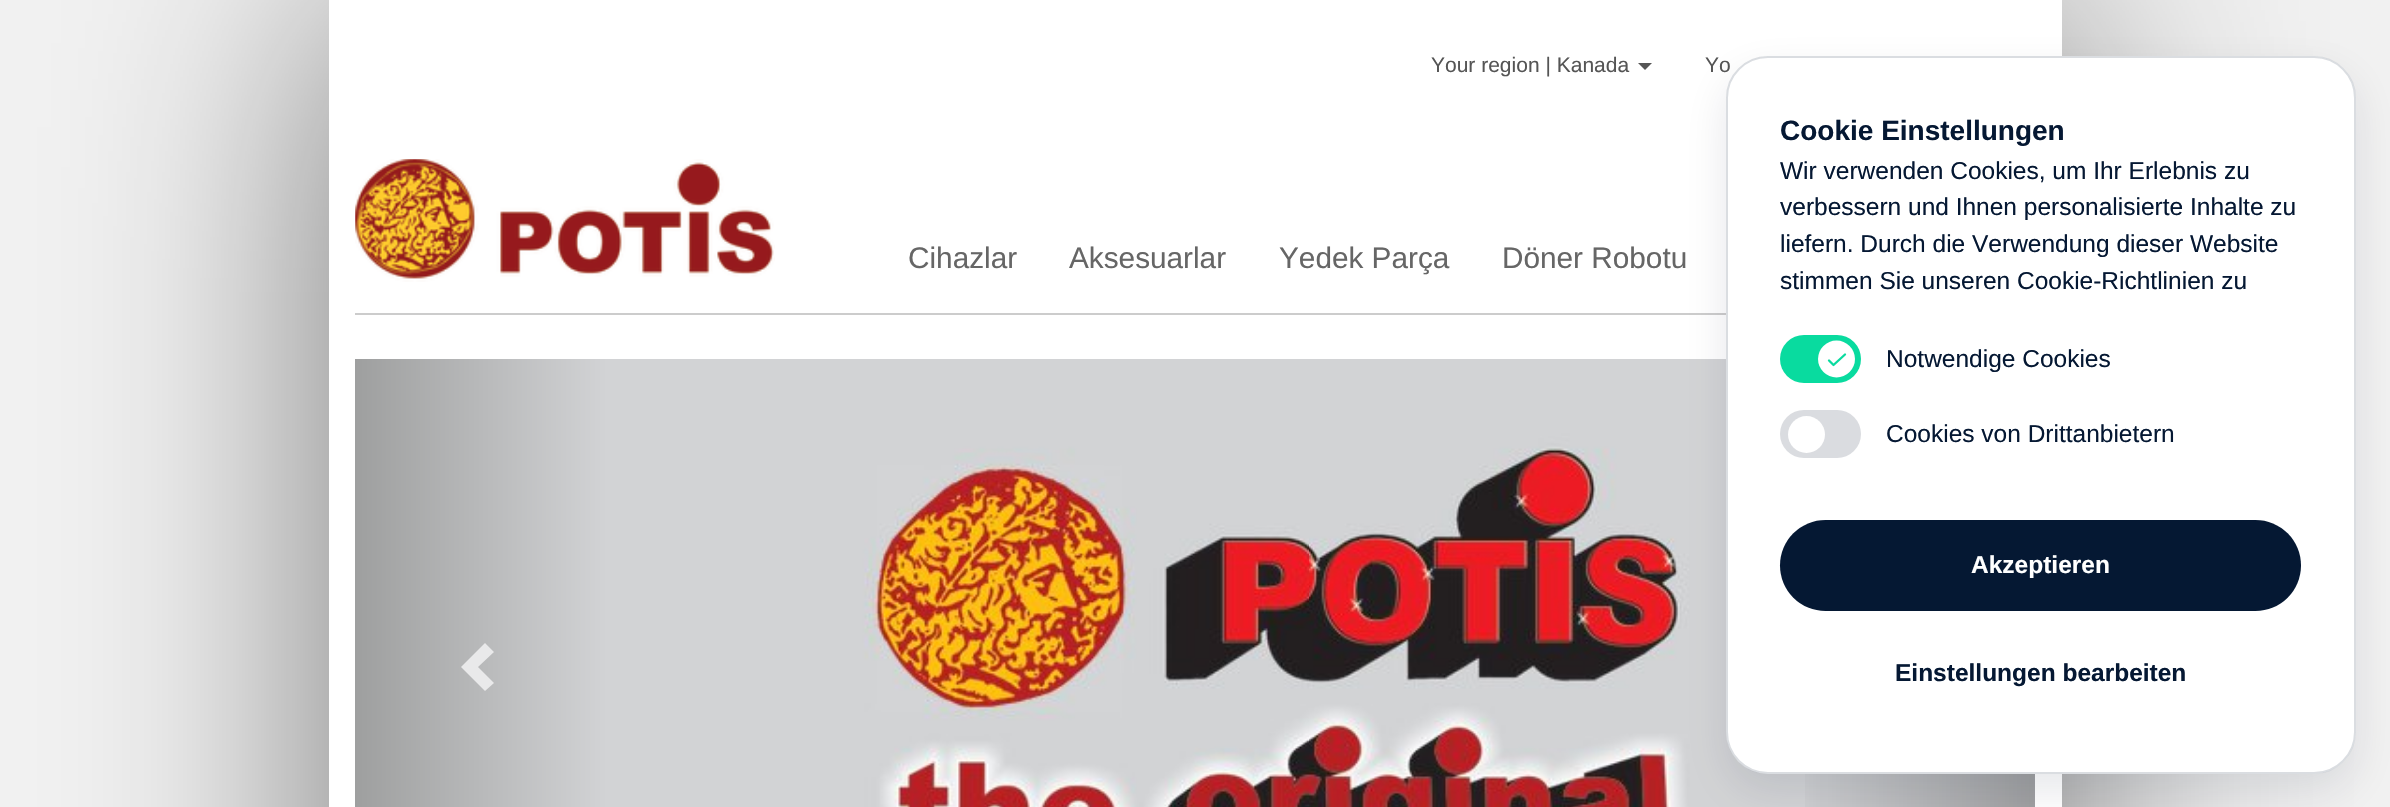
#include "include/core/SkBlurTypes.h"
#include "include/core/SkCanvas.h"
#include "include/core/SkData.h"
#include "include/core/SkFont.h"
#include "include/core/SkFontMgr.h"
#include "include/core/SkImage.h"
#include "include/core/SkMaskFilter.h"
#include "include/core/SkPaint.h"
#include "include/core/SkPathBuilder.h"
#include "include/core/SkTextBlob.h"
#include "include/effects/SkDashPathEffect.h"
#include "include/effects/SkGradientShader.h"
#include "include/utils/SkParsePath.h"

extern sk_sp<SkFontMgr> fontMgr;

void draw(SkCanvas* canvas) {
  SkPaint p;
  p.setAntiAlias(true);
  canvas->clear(SkColorSetRGB(242, 242, 242));
  p.setColor(SkColorSetARGB(128, 0, 0, 0));
  p.setMaskFilter(SkMaskFilter::MakeBlur(kNormal_SkBlurStyle, 131));
  canvas->drawRect(SkRect::MakeLTRB(329, 0, 2062, 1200), p);
  p.setMaskFilter(nullptr);
  p.setColor(SK_ColorWHITE);
  canvas->drawRect(SkRect::MakeLTRB(329, 0, 2062, 807), p);
  p.setColor(SkColorSetRGB(85, 85, 85));
  canvas->drawPath(SkPathBuilder().moveTo(1638, 63).lineTo(1652, 63).lineTo(1645, 70).close().detach(), p);
  canvas->drawImageRect(SkImages::DeferredFromEncodedData(SkData::MakeFromFileName("images/1.png")), SkRect::MakeLTRB(355, 159, 775, 282), SkSamplingOptions());
  p.setColor(SkColorSetRGB(204, 204, 204));
  canvas->drawRect(SkRect::MakeLTRB(355, 313, 1726, 315), p);
  {
    const SkColor colors[] = {SkColorSetRGB(158, 159, 159), SkColorSetRGB(210, 211, 213)};
    const float stops[] = {0, 1};
    const SkPoint ends[] = {{355, 665}, {607, 665}};
    p.setShader(SkGradientShader::MakeLinear(ends, colors, stops, 2, SkTileMode::kClamp));
    p.setAlpha(255);
  }
  canvas->drawRect(SkRect::MakeLTRB(355, 359, 607, 807), p);
  p.setShader(nullptr);
  p.setColor(SkColorSetRGB(233, 233, 234));
  canvas->drawPath(SkPathBuilder().moveTo(494, 652).lineTo(478, 667).lineTo(494, 683).lineTo(485, 691).lineTo(461, 667).lineTo(485, 643).close().detach(), p);
  canvas->drawImageRect(SkImages::DeferredFromEncodedData(SkData::MakeFromFileName("images/2.png")), SkRect::MakeLTRB(607, 359, 2035, 807), SkSamplingOptions());
  {
    const SkColor colors[] = {SkColorSetARGB(0, 0, 0, 0), SkColorSetARGB(64, 0, 0, 0)};
    const float stops[] = {0, 1};
    const SkPoint ends[] = {{1783, 665}, {2035, 665}};
    p.setShader(SkGradientShader::MakeLinear(ends, colors, stops, 2, SkTileMode::kClamp));
    p.setAlpha(255);
  }
  canvas->drawRect(SkRect::MakeLTRB(1805, 774, 2035, 807), p);
  p.setShader(nullptr);
  p.setColor(SkColorSetARGB(26, 5, 24, 51));
  p.setMaskFilter(SkMaskFilter::MakeBlur(kNormal_SkBlurStyle, 22));
  canvas->drawRoundRect(SkRect::MakeLTRB(1726, 74, 2356, 791), 42, 42, p);
  p.setMaskFilter(nullptr);
  SkFont font1(fontMgr->matchFamilyStyle("Liberation Sans", SkFontStyle::Normal()), 21);
  font1.setSubpixel(true);
  p.setColor(SkColorSetRGB(85, 85, 85));
  canvas->drawString("Your region | Kanada", 1431, 72, font1, p);
  canvas->drawString("Yo", 1705, 72, font1, p);
  SkFont font2(fontMgr->matchFamilyStyle("Liberation Sans", SkFontStyle::Normal()), 29.75f);
  font2.setSubpixel(true);
  p.setColor(SkColorSetRGB(102, 102, 102));
  canvas->drawString("Cihazlar", 908, 268, font2, p);
  canvas->drawString("Aksesuarlar", 1069, 268, font2, p);
  canvas->drawString("Yedek Parça", 1279, 268, font2, p);
  canvas->drawString("Döner Robotu", 1502, 268, font2, p);
  p.setColor(SK_ColorWHITE);
  canvas->drawRoundRect(SkRect::MakeLTRB(1726, 56, 2356, 774), 42, 42, p);
  p.setStyle(SkPaint::kStroke_Style);
  p.setStrokeWidth(2);
  p.setColor(SkColorSetARGB(38, 5, 24, 51));
  canvas->drawRoundRect(SkRect::MakeLTRB(1727, 57, 2355, 773), 41, 41, p);
  SkFont font3(fontMgr->matchFamilyStyle("Liberation Sans", SkFontStyle::Bold()), 28);
  font3.setSubpixel(true);
  p.setStyle(SkPaint::kFill_Style);
  p.setColor(SkColorSetRGB(5, 24, 51));
  canvas->drawString("Cookie Einstellungen", 1780, 140, font3, p);
  SkFont font4(fontMgr->matchFamilyStyle("Liberation Sans", SkFontStyle::Normal()), 24.5f);
  font4.setSubpixel(true);
  canvas->drawString("Wir verwenden Cookies, um Ihr Erlebnis zu", 1780, 179, font4, p);
  canvas->drawString("verbessern und Ihnen personalisierte Inhalte zu", 1780, 215, font4, p);
  canvas->drawString("liefern. Durch die Verwendung dieser Website", 1780, 252, font4, p);
  canvas->drawString("stimmen Sie unseren Cookie-Richtlinien zu", 1780, 289, font4, p);
  p.setColor(SkColorSetRGB(9, 219, 159));
  canvas->drawRoundRect(SkRect::MakeLTRB(1780, 335, 1861, 383), 24, 24, p);
  p.setColor(SK_ColorWHITE);
  canvas->drawCircle(1836.5f, 359, 18.5f, p);
  p.setStyle(SkPaint::kStroke_Style);
  p.setStrokeWidth(2.3f);
  p.setStrokeCap(SkPaint::kRound_Cap);
  p.setStrokeJoin(SkPaint::kRound_Join);
  p.setColor(SkColorSetRGB(9, 219, 159));
  canvas->drawPath(SkPathBuilder().moveTo(1829, 360.5f).lineTo(1833.5f, 365).lineTo(1845, 354.5f).detach(), p);
  p.setStyle(SkPaint::kFill_Style);
  p.setColor(SkColorSetRGB(5, 24, 51));
  canvas->drawString("Notwendige Cookies", 1886, 367, font4, p);
  p.setColor(SkColorSetRGB(218, 220, 224));
  canvas->drawRoundRect(SkRect::MakeLTRB(1780, 410, 1861, 458), 24, 24, p);
  p.setColor(SK_ColorWHITE);
  canvas->drawCircle(1806.5f, 434.5f, 18.5f, p);
  p.setColor(SkColorSetRGB(5, 24, 51));
  canvas->drawString("Cookies von Drittanbietern", 1886, 442, font4, p);
  canvas->drawRoundRect(SkRect::MakeLTRB(1780, 520, 2301, 611), 45.5f, 45.5f, p);
  SkFont font5(fontMgr->matchFamilyStyle("Liberation Sans", SkFontStyle::Bold()), 24.5f);
  font5.setSubpixel(true);
  p.setColor(SK_ColorWHITE);
  canvas->drawString("Akzeptieren", 1971, 573, font5, p);
  p.setColor(SkColorSetRGB(5, 24, 51));
  canvas->drawString("Einstellungen bearbeiten", 1895, 681, font5, p);
}
